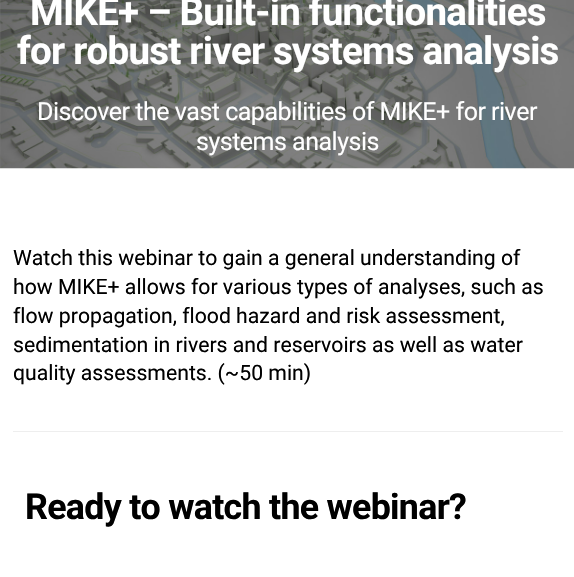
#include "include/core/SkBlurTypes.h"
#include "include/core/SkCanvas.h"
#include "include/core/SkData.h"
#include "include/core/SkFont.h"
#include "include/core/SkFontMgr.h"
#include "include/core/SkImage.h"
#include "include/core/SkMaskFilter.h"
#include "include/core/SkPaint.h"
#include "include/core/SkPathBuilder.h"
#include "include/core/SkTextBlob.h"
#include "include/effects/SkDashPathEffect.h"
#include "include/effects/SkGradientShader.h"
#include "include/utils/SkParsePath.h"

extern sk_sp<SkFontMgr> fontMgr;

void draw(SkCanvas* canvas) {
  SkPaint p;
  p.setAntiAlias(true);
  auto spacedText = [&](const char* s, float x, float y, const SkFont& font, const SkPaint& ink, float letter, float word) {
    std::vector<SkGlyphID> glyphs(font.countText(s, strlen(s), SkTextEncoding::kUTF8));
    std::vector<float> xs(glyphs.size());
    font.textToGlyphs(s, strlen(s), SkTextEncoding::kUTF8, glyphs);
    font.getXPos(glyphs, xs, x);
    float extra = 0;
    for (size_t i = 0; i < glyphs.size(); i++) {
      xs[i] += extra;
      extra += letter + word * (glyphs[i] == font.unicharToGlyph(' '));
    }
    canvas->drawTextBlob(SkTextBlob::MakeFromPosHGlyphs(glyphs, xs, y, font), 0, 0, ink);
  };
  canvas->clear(SK_ColorWHITE);
  canvas->drawImageRect(SkImages::DeferredFromEncodedData(SkData::MakeFromFileName("images/1.png")), SkRect::MakeLTRB(0, 0, 574, 169), SkSamplingOptions());
  p.setColor(SkColorSetRGB(238, 238, 238));
  canvas->drawRect(SkRect::MakeLTRB(13, 431, 563, 432), p);
  SkFont font1(fontMgr->matchFamilyStyle("Roboto", SkFontStyle::Bold()), 38.5f);
  font1.setSubpixel(true);
  p.setColor(SK_ColorWHITE);
  spacedText("MIKE+ – Built-in functionalities", 30, 25, font1, p, -0.75f, 0);
  spacedText("for robust river systems analysis", 17, 64, font1, p, -0.75f, 0);
  SkFont font2(fontMgr->matchFamilyStyle("Roboto", SkFontStyle::Normal()), 25);
  font2.setSubpixel(true);
  spacedText("Discover the vast capabilities of MIKE+ for river", 37, 120, font2, p, -0.5f, 0);
  spacedText("systems analysis", 196, 150, font2, p, -0.5f, 0);
  SkFont font3(fontMgr->matchFamilyStyle("Roboto", SkFontStyle::Normal()), 21.2f);
  font3.setSubpixel(true);
  p.setColor(SK_ColorBLACK);
  canvas->drawString("Watch this webinar to gain a general understanding of", 13, 265, font3, p);
  canvas->drawString("how MIKE+ allows for various types of analyses, such as", 13, 294, font3, p);
  canvas->drawString("flow propagation, flood hazard and risk assessment,", 13, 323, font3, p);
  canvas->drawString("sedimentation in rivers and reservoirs as well as water", 13, 352, font3, p);
  canvas->drawString("quality assessments. (~50 min)", 13, 380, font3, p);
  SkFont font4(fontMgr->matchFamilyStyle("Roboto", SkFontStyle::Bold()), 35.75f);
  font4.setSubpixel(true);
  spacedText("Ready to watch the webinar?", 25, 519, font4, p, -0.7f, 0);
}
